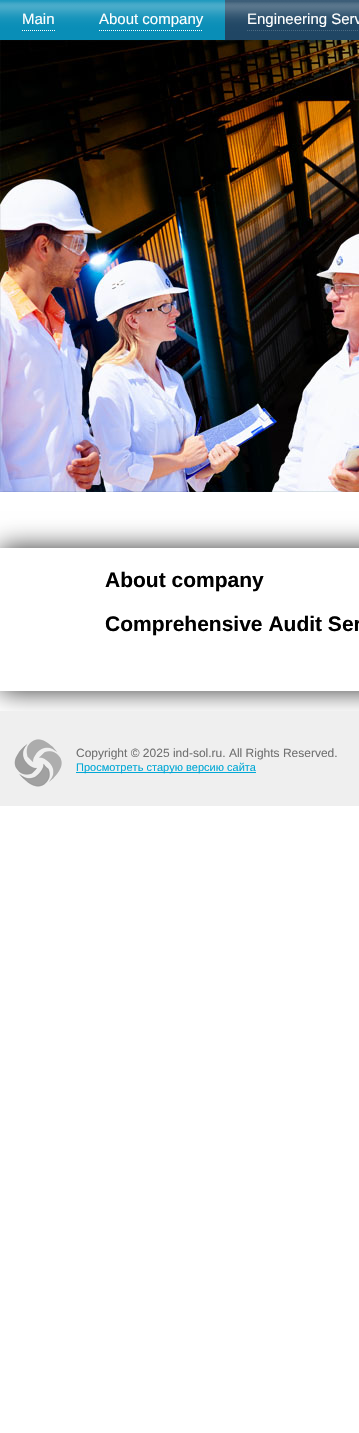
#include "include/core/SkBlurTypes.h"
#include "include/core/SkCanvas.h"
#include "include/core/SkData.h"
#include "include/core/SkFont.h"
#include "include/core/SkFontMgr.h"
#include "include/core/SkImage.h"
#include "include/core/SkMaskFilter.h"
#include "include/core/SkPaint.h"
#include "include/core/SkPathBuilder.h"
#include "include/core/SkTextBlob.h"
#include "include/effects/SkDashPathEffect.h"
#include "include/effects/SkGradientShader.h"
#include "include/utils/SkParsePath.h"

extern sk_sp<SkFontMgr> fontMgr;

void draw(SkCanvas* canvas) {
  SkPaint p;
  p.setAntiAlias(true);
  canvas->clear(SK_ColorWHITE);
  canvas->drawImageRect(SkImages::DeferredFromEncodedData(SkData::MakeFromFileName("images/1.png")), SkRect::MakeLTRB(225, 0, 359, 40), SkSamplingOptions());
  canvas->drawImageRect(SkImages::DeferredFromEncodedData(SkData::MakeFromFileName("images/2.png")), SkRect::MakeLTRB(0, 0, 77, 40), SkSamplingOptions());
  p.setStyle(SkPaint::kStroke_Style);
  p.setStrokeWidth(1);
  p.setColor(SK_ColorWHITE);
  p.setPathEffect(SkDashPathEffect::Make({{1, 1}}, 0));
  canvas->drawPath(SkPathBuilder().moveTo(22, 30.5f).lineTo(55, 30.5f).detach(), p);
  p.setPathEffect(nullptr);
  canvas->drawImageRect(SkImages::DeferredFromEncodedData(SkData::MakeFromFileName("images/3.png")), SkRect::MakeLTRB(77, 0, 225, 40), SkSamplingOptions());
  p.setPathEffect(SkDashPathEffect::Make({{1, 1}}, 0));
  canvas->drawPath(SkPathBuilder().moveTo(99, 30.5f).lineTo(203, 30.5f).detach(), p);
  p.setPathEffect(nullptr);
  p.setColor(SkColorSetRGB(79, 109, 133));
  p.setPathEffect(SkDashPathEffect::Make({{1, 1}}, 0));
  canvas->drawPath(SkPathBuilder().moveTo(247, 30.5f).lineTo(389, 30.5f).detach(), p);
  p.setPathEffect(nullptr);
  canvas->drawImageRect(SkImages::DeferredFromEncodedData(SkData::MakeFromFileName("images/4.png")), SkRect::MakeLTRB(0, 40, 359, 492), SkSamplingOptions());
  canvas->save();
  canvas->clipPath(SkPathBuilder(SkPathFillType::kEvenOdd).moveTo(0, 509).lineTo(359, 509).lineTo(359, 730).lineTo(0, 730).close().moveTo(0, 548).lineTo(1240, 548).lineTo(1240, 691).lineTo(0, 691).close().detach(), true);
  p.setStyle(SkPaint::kFill_Style);
  p.setColor(SkColorSetRGB(51, 51, 51));
  p.setMaskFilter(SkMaskFilter::MakeBlur(kNormal_SkBlurStyle, 12.5f));
  canvas->drawRect(SkRect::MakeLTRB(0, 548, 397, 691), p);
  p.setMaskFilter(nullptr);
  canvas->restore();
  p.setColor(SkColorSetRGB(239, 239, 239));
  canvas->drawRect(SkRect::MakeLTRB(0, 711, 359, 806), p);
  canvas->drawImageRect(SkImages::DeferredFromEncodedData(SkData::MakeFromFileName("images/5.png")), SkRect::MakeLTRB(14, 739, 62, 787), SkSamplingOptions());
  p.setColor(SkColorSetRGB(0, 168, 214));
  canvas->drawRect(SkRect::MakeLTRB(76, 772, 256, 773), p);
  SkFont font1(fontMgr->matchFamilyStyle("Liberation Sans", SkFontStyle::Normal()), 15);
  font1.setSubpixel(true);
  p.setColor(SK_ColorWHITE);
  canvas->drawString("Main", 22, 24, font1, p);
  canvas->drawString("About company", 99, 24, font1, p);
  canvas->drawString("Engineering Serv", 247, 24, font1, p);
  SkFont font2(fontMgr->matchFamilyStyle("Liberation Sans", SkFontStyle::Bold()), 21);
  font2.setSubpixel(true);
  p.setColor(SK_ColorBLACK);
  canvas->drawString("About company", 105, 587, font2, p);
  canvas->drawString("Comprehensive Audit Ser", 105, 631, font2, p);
  SkFont font3(fontMgr->matchFamilyStyle("Liberation Sans", SkFontStyle::Normal()), 12);
  font3.setSubpixel(true);
  p.setColor(SkColorSetRGB(113, 113, 113));
  canvas->drawString("Copyright © 2025 ind-sol.ru. All Rights Reserved.", 76, 757, font3, p);
  SkFont font4(fontMgr->matchFamilyStyle("Liberation Sans", SkFontStyle::Normal()), 11);
  font4.setSubpixel(true);
  p.setColor(SkColorSetRGB(0, 168, 214));
  canvas->drawString("Просмотреть старую версию сайта", 76, 771, font4, p);
}
